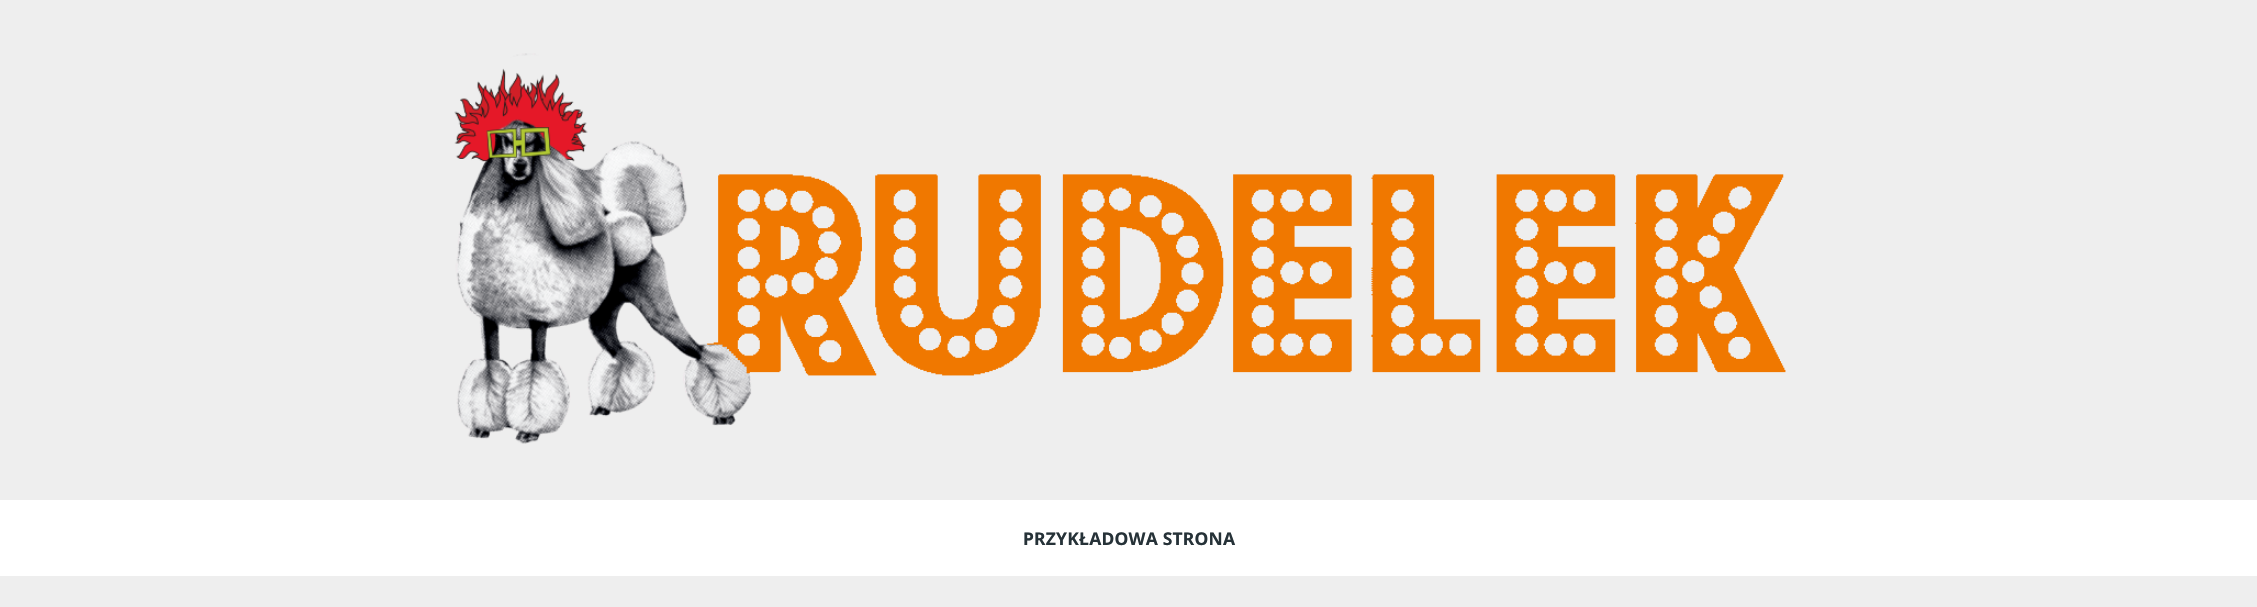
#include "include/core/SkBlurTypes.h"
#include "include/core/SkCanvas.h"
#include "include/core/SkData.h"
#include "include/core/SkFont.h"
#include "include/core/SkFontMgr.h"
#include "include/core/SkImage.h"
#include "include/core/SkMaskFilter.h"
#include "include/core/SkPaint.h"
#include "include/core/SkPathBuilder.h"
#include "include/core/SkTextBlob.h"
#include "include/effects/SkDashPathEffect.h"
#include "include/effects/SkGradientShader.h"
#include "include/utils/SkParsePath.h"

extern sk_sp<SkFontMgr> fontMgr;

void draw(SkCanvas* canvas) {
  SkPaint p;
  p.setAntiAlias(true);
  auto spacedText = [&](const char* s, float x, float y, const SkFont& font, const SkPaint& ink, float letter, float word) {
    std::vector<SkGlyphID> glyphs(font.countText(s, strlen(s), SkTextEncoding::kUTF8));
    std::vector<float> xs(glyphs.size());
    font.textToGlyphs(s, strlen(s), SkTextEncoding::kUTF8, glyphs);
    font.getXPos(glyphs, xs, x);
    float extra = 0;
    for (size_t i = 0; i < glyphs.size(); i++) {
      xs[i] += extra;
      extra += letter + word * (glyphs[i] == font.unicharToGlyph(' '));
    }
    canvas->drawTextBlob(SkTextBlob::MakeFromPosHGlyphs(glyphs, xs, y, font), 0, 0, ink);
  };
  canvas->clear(SkColorSetRGB(238, 238, 238));
  canvas->drawImageRect(SkImages::DeferredFromEncodedData(SkData::MakeFromFileName("images/1.png")), SkRect::MakeLTRB(454, 53, 1786, 444), SkSamplingOptions());
  p.setColor(SK_ColorWHITE);
  canvas->drawRect(SkRect::MakeLTRB(0, 500, 2257, 576), p);
  SkFont font1(fontMgr->matchFamilyStyle("Noto Sans", SkFontStyle::Bold()), 17.5f);
  font1.setSubpixel(true);
  p.setColor(SkColorSetRGB(38, 50, 56));
  spacedText("PRZYKŁADOWA STRONA", 1023, 545, font1, p, 0.2f, 0);
}
